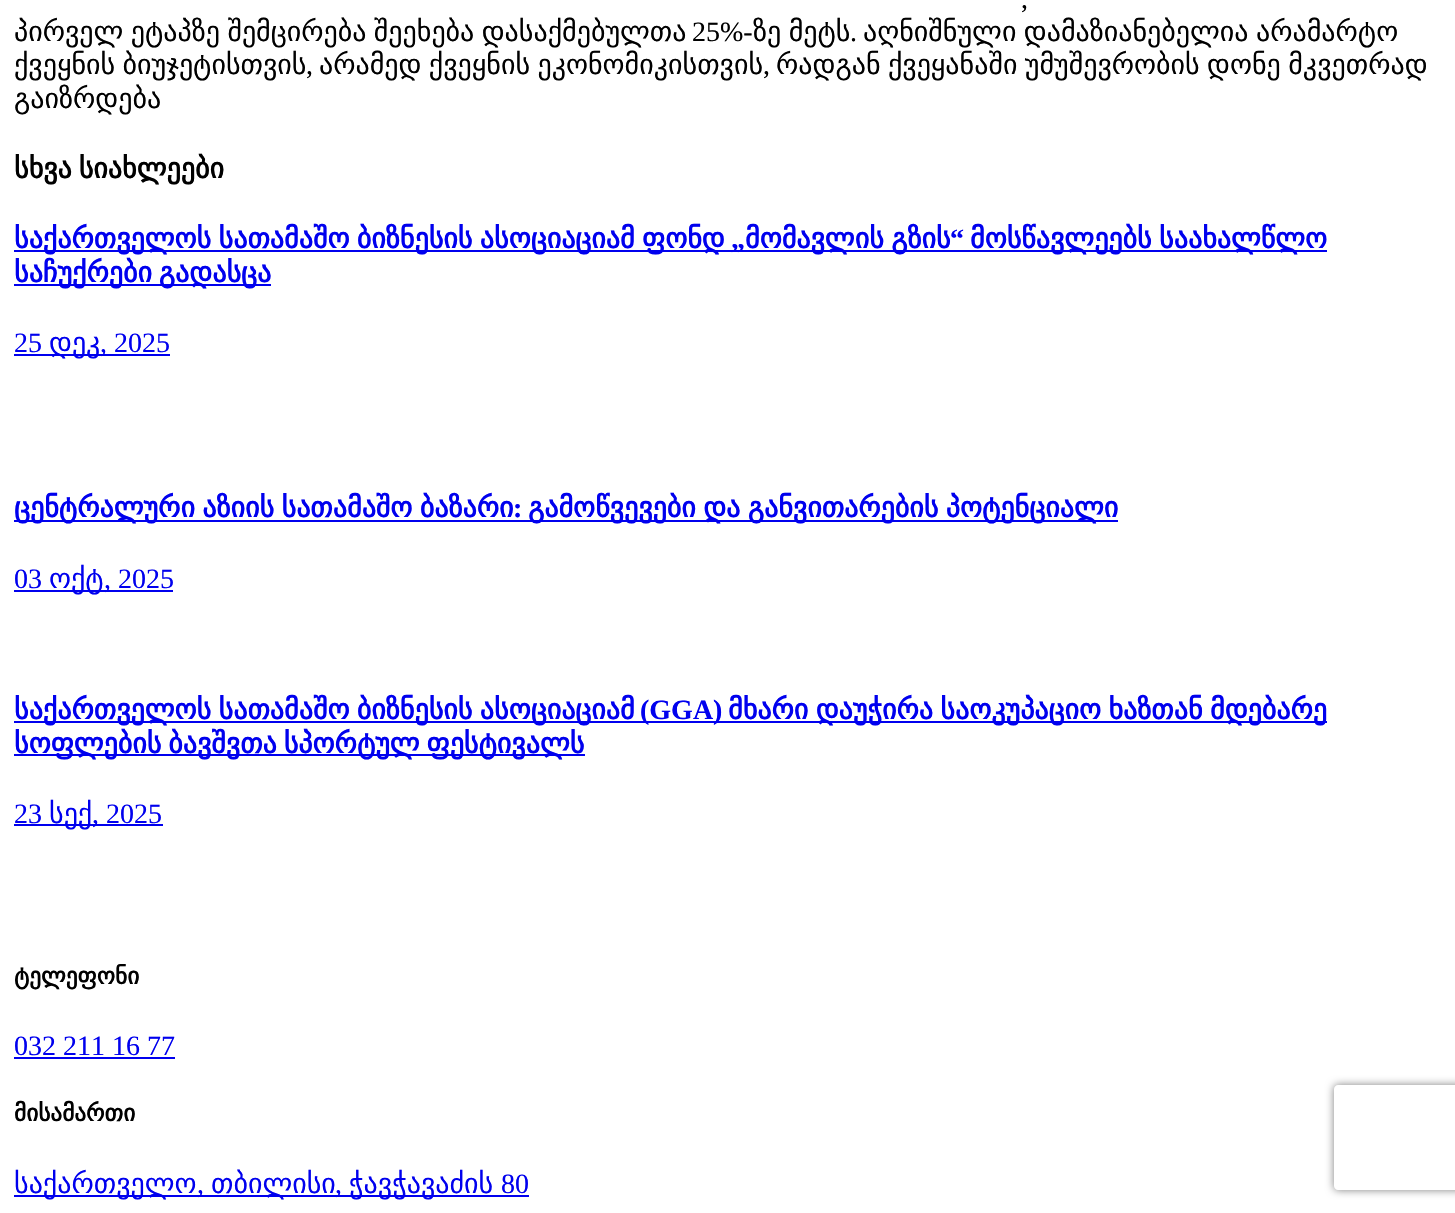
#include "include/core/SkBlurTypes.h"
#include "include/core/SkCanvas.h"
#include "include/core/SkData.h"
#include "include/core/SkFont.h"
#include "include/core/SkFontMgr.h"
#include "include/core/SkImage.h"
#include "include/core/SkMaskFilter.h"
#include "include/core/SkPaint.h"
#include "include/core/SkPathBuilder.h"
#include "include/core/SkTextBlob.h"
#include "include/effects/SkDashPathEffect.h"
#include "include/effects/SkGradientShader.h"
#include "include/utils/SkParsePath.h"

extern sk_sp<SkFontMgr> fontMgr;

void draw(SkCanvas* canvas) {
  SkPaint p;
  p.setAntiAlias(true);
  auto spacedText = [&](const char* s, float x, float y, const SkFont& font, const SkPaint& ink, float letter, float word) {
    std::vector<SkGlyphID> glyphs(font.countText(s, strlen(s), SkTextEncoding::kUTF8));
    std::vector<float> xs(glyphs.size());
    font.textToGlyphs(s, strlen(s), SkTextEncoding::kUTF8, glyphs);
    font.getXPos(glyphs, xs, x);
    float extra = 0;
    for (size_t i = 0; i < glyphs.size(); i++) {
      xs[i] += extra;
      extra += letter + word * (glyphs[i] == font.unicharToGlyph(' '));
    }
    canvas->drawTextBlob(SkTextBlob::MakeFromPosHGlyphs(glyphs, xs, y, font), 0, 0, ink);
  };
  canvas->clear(SK_ColorWHITE);
  p.setColor(SkColorSetRGB(0, 0, 238));
  canvas->drawRect(SkRect::MakeLTRB(14, 250, 1327, 252), p);
  canvas->drawRect(SkRect::MakeLTRB(14, 284, 271, 286), p);
  canvas->drawRect(SkRect::MakeLTRB(14, 354, 170, 356), p);
  canvas->drawRect(SkRect::MakeLTRB(14, 520, 1118, 522), p);
  canvas->drawRect(SkRect::MakeLTRB(14, 590, 173, 592), p);
  canvas->drawRect(SkRect::MakeLTRB(14, 721, 1327, 723), p);
  canvas->drawRect(SkRect::MakeLTRB(14, 754, 585, 756), p);
  canvas->drawRect(SkRect::MakeLTRB(14, 824, 163, 826), p);
  canvas->drawRect(SkRect::MakeLTRB(14, 1057, 175, 1059), p);
  canvas->drawRect(SkRect::MakeLTRB(14, 1195, 529, 1197), p);
  canvas->save();
  canvas->clipPath(SkPathBuilder(SkPathFillType::kEvenOdd).moveTo(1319, 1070).lineTo(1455, 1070).lineTo(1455, 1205).lineTo(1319, 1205).close().moveTo(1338, 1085).lineTo(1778, 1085).cubicTo(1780, 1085, 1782, 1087, 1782, 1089).lineTo(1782, 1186).cubicTo(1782, 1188, 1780, 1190, 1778, 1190).lineTo(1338, 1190).cubicTo(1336, 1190, 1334, 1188, 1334, 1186).lineTo(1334, 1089).cubicTo(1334, 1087, 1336, 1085, 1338, 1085).close().detach(), true);
  p.setColor(SkColorSetRGB(128, 128, 128));
  p.setMaskFilter(SkMaskFilter::MakeBlur(kNormal_SkBlurStyle, 4.5f));
  canvas->drawRoundRect(SkRect::MakeLTRB(1334, 1085, 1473, 1190), 4, 4, p);
  p.setMaskFilter(nullptr);
  canvas->restore();
  SkFont font1(fontMgr->matchFamilyStyle("Liberation Serif", SkFontStyle::Normal()), 28);
  font1.setSubpixel(true);
  p.setColor(SK_ColorBLACK);
  canvas->drawString(",", 1021, 8, font1, p);
  SkFont font2(fontMgr->matchFamilyStyle("DejaVu Sans", SkFontStyle::Normal()), 28);
  font2.setSubpixel(true);
  spacedText("პირველ ეტაპზე შემცირება შეეხება დასაქმებულთა", 14, 41, font2, p, 0, -1.5f);
  canvas->drawString("25%-", 692, 41, font1, p);
  spacedText("ზე მეტს", 753, 41, font2, p, 0, -1.5f);
  canvas->drawString(".", 850, 41, font1, p);
  spacedText("აღნიშნული დამაზიანებელია არამარტო", 863, 41, font2, p, 0, -1.5f);
  spacedText("ქვეყნის ბიუჯეტისთვის", 14, 74, font2, p, 0, -1.5f);
  canvas->drawString(",", 306, 74, font1, p);
  spacedText("არამედ ქვეყნის ეკონომიკისთვის", 319, 74, font2, p, 0, -1.5f);
  canvas->drawString(",", 763, 74, font1, p);
  spacedText("რადგან ქვეყანაში უმუშევრობის დონე მკვეთრად", 776, 74, font2, p, 0, -1.5f);
  canvas->drawString("გაიზრდება", 14, 108, font2, p);
  SkFont font3(fontMgr->matchFamilyStyle("DejaVu Sans", SkFontStyle::Bold()), 28);
  font3.setSubpixel(true);
  spacedText("სხვა სიახლეები", 14, 178, font3, p, 0, -2);
  p.setColor(SkColorSetRGB(0, 0, 238));
  spacedText("საქართველოს სათამაშო ბიზნესის ასოციაციამ ფონდ", 14, 248, font3, p, 0, -1.5f);
  spacedText("მომავლის გზის", 745, 248, font3, p, 0, -1.5f);
  SkFont font4(fontMgr->matchFamilyStyle("Liberation Serif", SkFontStyle::Bold()), 28);
  font4.setSubpixel(true);
  canvas->drawString("“", 950, 248, font4, p);
  spacedText("მოსწავლეებს საახალწლო", 970, 248, font3, p, 0, -1.5f);
  canvas->drawString("„", 731, 248, font4, p);
  spacedText("საჩუქრები გადასცა", 14, 282, font3, p, 0, -2);
  canvas->drawString("25", 14, 352, font1, p);
  canvas->drawString("დეკ", 49, 352, font2, p);
  canvas->drawString(", 2025", 100, 352, font1, p);
  spacedText("ცენტრალური აზიის სათამაშო ბაზარი", 14, 517, font3, p, 0, -1.5f);
  canvas->drawString(":", 513, 517, font4, p);
  spacedText("გამოწვევები და განვითარების პოტენციალი", 528, 517, font3, p, 0, -1.5f);
  canvas->drawString("03", 14, 588, font1, p);
  canvas->drawString("ოქტ", 49, 588, font2, p);
  canvas->drawString(", 2025", 104, 588, font1, p);
  spacedText("საქართველოს სათამაშო ბიზნესის ასოციაციამ", 14, 719, font3, p, 0, -1.5f);
  canvas->drawString("(GGA)", 640, 719, font4, p);
  spacedText("მხარი დაუჭირა საოკუპაციო ხაზთან მდებარე", 728, 719, font3, p, 0, -1.5f);
  spacedText("სოფლების ბავშვთა სპორტულ ფესტივალს", 14, 753, font3, p, 0, -2);
  canvas->drawString("23", 14, 823, font1, p);
  canvas->drawString("სექ", 49, 823, font2, p);
  canvas->drawString(", 2025", 92, 823, font1, p);
  SkFont font5(fontMgr->matchFamilyStyle("DejaVu Sans", SkFontStyle::Bold()), 23.25f);
  font5.setSubpixel(true);
  p.setColor(SK_ColorBLACK);
  canvas->drawString("ტელეფონი", 14, 984, font5, p);
  p.setColor(SkColorSetRGB(0, 0, 238));
  canvas->drawString("032 211 16 77", 14, 1055, font1, p);
  p.setColor(SK_ColorBLACK);
  canvas->drawString("მისამართი", 14, 1121, font5, p);
  p.setColor(SkColorSetRGB(0, 0, 238));
  canvas->drawString("საქართველო", 14, 1193, font2, p);
  canvas->drawString(",", 197, 1193, font1, p);
  canvas->drawString("თბილისი", 211, 1193, font2, p);
  canvas->drawString(",", 335, 1193, font1, p);
  canvas->drawString("ჭავჭავაძის", 349, 1193, font2, p);
  canvas->drawString("80", 501, 1193, font1, p);
}
